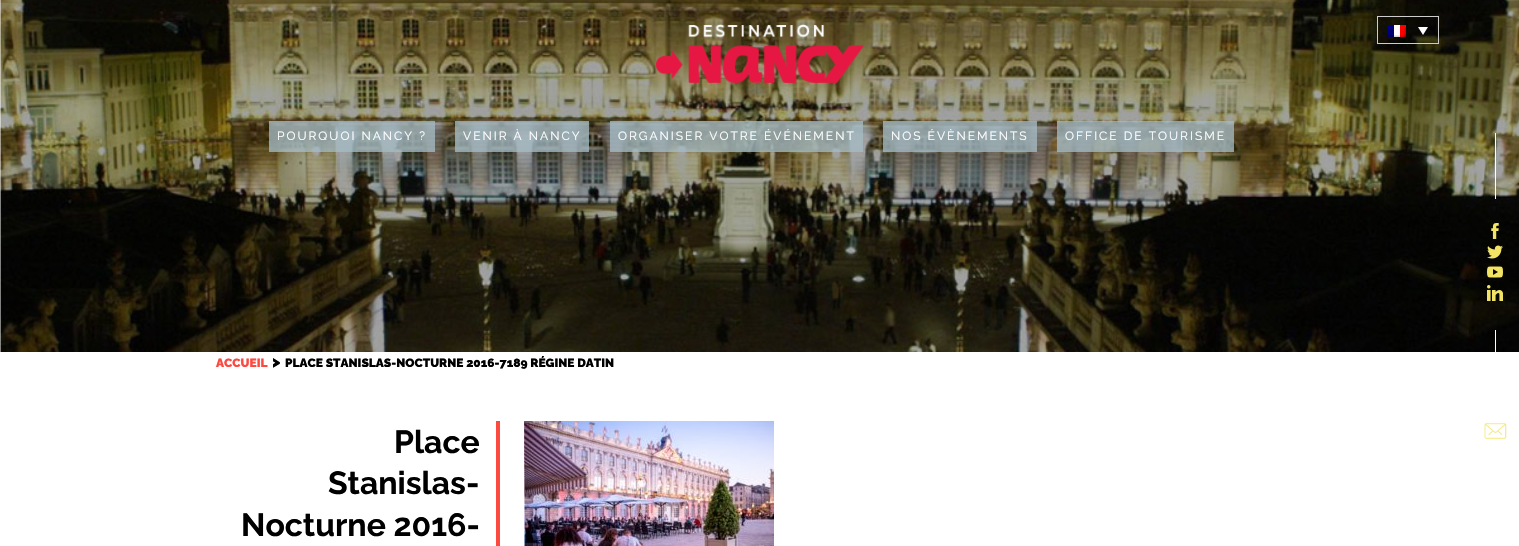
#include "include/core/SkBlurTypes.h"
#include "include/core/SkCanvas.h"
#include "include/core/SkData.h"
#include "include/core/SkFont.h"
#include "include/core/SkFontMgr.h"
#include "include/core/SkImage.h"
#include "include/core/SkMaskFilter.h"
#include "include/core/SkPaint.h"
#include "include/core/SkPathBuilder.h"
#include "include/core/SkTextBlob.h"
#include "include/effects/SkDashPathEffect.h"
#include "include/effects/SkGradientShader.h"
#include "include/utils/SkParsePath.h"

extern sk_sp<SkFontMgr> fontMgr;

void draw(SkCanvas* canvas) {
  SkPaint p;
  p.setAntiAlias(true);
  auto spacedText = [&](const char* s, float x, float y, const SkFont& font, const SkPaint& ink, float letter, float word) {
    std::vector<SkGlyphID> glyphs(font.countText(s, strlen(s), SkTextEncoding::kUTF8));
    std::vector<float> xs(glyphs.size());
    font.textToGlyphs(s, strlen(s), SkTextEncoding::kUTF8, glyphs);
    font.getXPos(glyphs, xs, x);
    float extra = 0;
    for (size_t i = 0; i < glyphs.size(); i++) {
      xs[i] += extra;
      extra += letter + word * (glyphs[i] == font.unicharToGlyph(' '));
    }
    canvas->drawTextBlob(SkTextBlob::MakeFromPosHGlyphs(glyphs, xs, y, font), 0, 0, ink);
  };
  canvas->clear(SK_ColorWHITE);
  canvas->drawImageRect(SkImages::DeferredFromEncodedData(SkData::MakeFromFileName("images/8.png")), SkRect::MakeLTRB(0, 0, 1519, 352), SkSamplingOptions());
  canvas->drawImageRect(SkImages::DeferredFromEncodedData(SkData::MakeFromFileName("images/1.png")), SkRect::MakeLTRB(656, 24, 864, 83), SkSamplingOptions());
  p.setStyle(SkPaint::kStroke_Style);
  p.setStrokeWidth(1);
  p.setColor(SkColorSetRGB(205, 205, 205));
  canvas->drawRect(SkRect::MakeLTRB(1377.5f, 16.5f, 1438.5f, 43.5f), p);
  canvas->drawImageRect(SkImages::DeferredFromEncodedData(SkData::MakeFromFileName("images/2.png")), SkRect::MakeLTRB(1388, 25, 1406, 37), SkSamplingOptions());
  p.setStyle(SkPaint::kFill_Style);
  p.setColor(SK_ColorWHITE);
  canvas->drawPath(SkPathBuilder().moveTo(1418, 27).lineTo(1428, 27).lineTo(1423, 35).close().detach(), p);
  p.setColor(SkColorSetARGB(196, 165, 187, 197));
  canvas->drawRect(SkRect::MakeLTRB(269, 121, 435, 152), p);
  canvas->drawRect(SkRect::MakeLTRB(455, 121, 589, 152), p);
  canvas->drawRect(SkRect::MakeLTRB(610, 121, 863, 152), p);
  canvas->drawRect(SkRect::MakeLTRB(883, 121, 1037, 152), p);
  canvas->drawRect(SkRect::MakeLTRB(1057, 121, 1234, 152), p);
  p.setColor(SK_ColorWHITE);
  canvas->drawRect(SkRect::MakeLTRB(1495, 133, 1496, 199), p);
  canvas->drawImageRect(SkImages::DeferredFromEncodedData(SkData::MakeFromFileName("images/3.png")), SkRect::MakeLTRB(1491, 223, 1499, 239), SkSamplingOptions());
  canvas->drawImageRect(SkImages::DeferredFromEncodedData(SkData::MakeFromFileName("images/4.png")), SkRect::MakeLTRB(1487, 245, 1503, 259), SkSamplingOptions());
  canvas->drawImageRect(SkImages::DeferredFromEncodedData(SkData::MakeFromFileName("images/5.png")), SkRect::MakeLTRB(1487, 266, 1503, 278), SkSamplingOptions());
  canvas->drawImageRect(SkImages::DeferredFromEncodedData(SkData::MakeFromFileName("images/6.png")), SkRect::MakeLTRB(1487, 285, 1503, 301), SkSamplingOptions());
  canvas->drawRect(SkRect::MakeLTRB(1495, 330, 1496, 352), p);
  canvas->drawImageRect(SkImages::DeferredFromEncodedData(SkData::MakeFromFileName("images/7.png")), SkRect::MakeLTRB(1484, 422, 1507, 440), SkSamplingOptions());
  p.setColor(SkColorSetRGB(253, 74, 65));
  canvas->drawRect(SkRect::MakeLTRB(496, 421, 500, 546), p);
  canvas->drawImageRect(SkImages::DeferredFromEncodedData(SkData::MakeFromFileName("images/9.png")), SkRect::MakeLTRB(524, 421, 774, 546), SkSamplingOptions());
  SkFont font1(fontMgr->matchFamilyStyle("Raleway", SkFontStyle::Normal()), 12);
  font1.setSubpixel(true);
  p.setColor(SK_ColorWHITE);
  spacedText("POURQUOI NANCY ?", 277, 140, font1, p, 2, 0);
  spacedText("VENIR À NANCY", 463, 140, font1, p, 2, 0);
  spacedText("ORGANISER VOTRE ÉVÉNEMENT", 618, 140, font1, p, 2, 0);
  spacedText("NOS ÉVÈNEMENTS", 891, 140, font1, p, 2, 0);
  spacedText("OFFICE DE TOURISME", 1065, 140, font1, p, 2, 0);
  SkFont font2(fontMgr->matchFamilyStyle("Raleway", SkFontStyle(900, SkFontStyle::kNormal_Width, SkFontStyle::kUpright_Slant)), 12);
  font2.setSubpixel(true);
  p.setColor(SkColorSetRGB(253, 74, 65));
  canvas->drawString("ACCUEIL", 216, 367, font2, p);
  SkFont font3(fontMgr->matchFamilyStyle("Raleway", SkFontStyle(900, SkFontStyle::kNormal_Width, SkFontStyle::kUpright_Slant)), 16);
  font3.setSubpixel(true);
  p.setColor(SK_ColorBLACK);
  canvas->drawString(">", 272, 367, font3, p);
  canvas->drawString("PLACE STANISLAS-NOCTURNE 2016-7189 RÉGINE DATIN", 285, 367, font2, p);
  SkFont font4(fontMgr->matchFamilyStyle("Raleway", SkFontStyle::Bold()), 32);
  font4.setSubpixel(true);
  canvas->drawString("Place", 394, 453, font4, p);
  canvas->drawString("Stanislas-", 328, 494, font4, p);
  canvas->drawString("Nocturne 2016-", 241, 536, font4, p);
}
